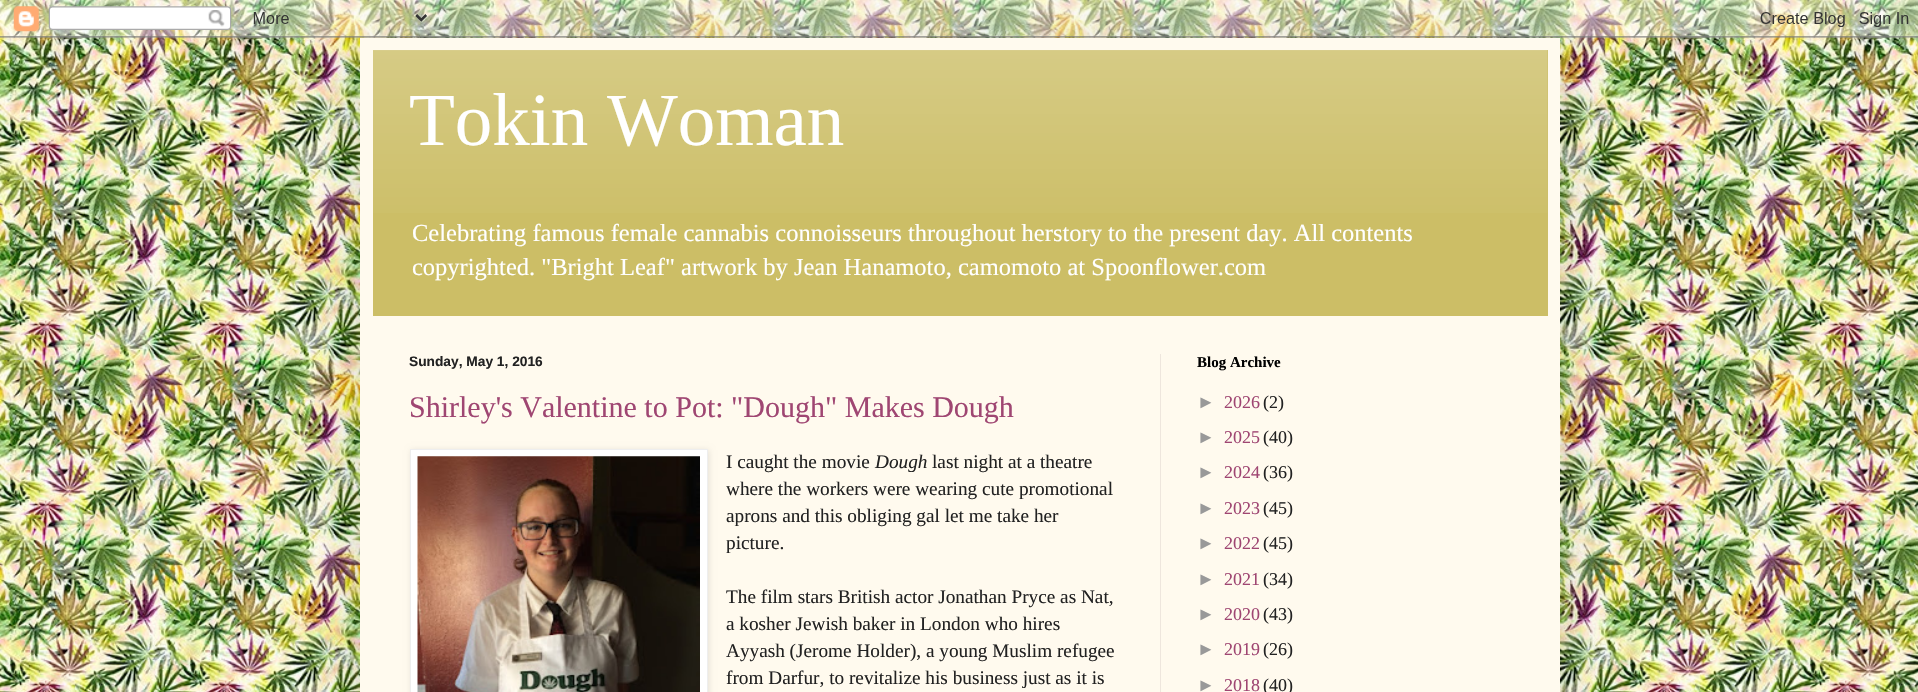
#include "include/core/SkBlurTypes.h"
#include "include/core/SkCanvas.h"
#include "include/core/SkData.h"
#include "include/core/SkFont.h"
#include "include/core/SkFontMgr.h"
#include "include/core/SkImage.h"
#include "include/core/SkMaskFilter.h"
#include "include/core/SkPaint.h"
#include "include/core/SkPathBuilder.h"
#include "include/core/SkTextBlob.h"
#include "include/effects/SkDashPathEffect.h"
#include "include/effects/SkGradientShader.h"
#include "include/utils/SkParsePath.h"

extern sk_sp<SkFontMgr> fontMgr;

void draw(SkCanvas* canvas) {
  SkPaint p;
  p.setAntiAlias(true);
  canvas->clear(SK_ColorWHITE);
  canvas->drawImageRect(SkImages::DeferredFromEncodedData(SkData::MakeFromFileName("images/1.png")), SkRect::MakeLTRB(0, 0, 1918, 692), SkSamplingOptions());
  p.setColor(SkColorSetARGB(38, 0, 0, 0));
  p.setMaskFilter(SkMaskFilter::MakeBlur(kNormal_SkBlurStyle, 25));
  canvas->drawRect(SkRect::MakeLTRB(360, 38, 1560, 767), p);
  p.setMaskFilter(nullptr);
  canvas->drawImageRect(SkImages::DeferredFromEncodedData(SkData::MakeFromFileName("images/2.png")), SkRect::MakeLTRB(0, 0, 1918, 38), SkSamplingOptions());
  p.setColor(SkColorSetRGB(255, 250, 238));
  canvas->drawRect(SkRect::MakeLTRB(360, 38, 1560, 692), p);
  p.setColor(SkColorSetRGB(204, 190, 102));
  canvas->drawRect(SkRect::MakeLTRB(373, 50, 1548, 316), p);
  canvas->drawImageRect(SkImages::DeferredFromEncodedData(SkData::MakeFromFileName("images/3.png")), SkRect::MakeLTRB(373, 50, 1548, 213), SkSamplingOptions());
  p.setColor(SkColorSetRGB(238, 230, 221));
  canvas->drawRect(SkRect::MakeLTRB(1160, 354, 1161, 692), p);
  p.setColor(SkColorSetARGB(26, 0, 0, 0));
  p.setMaskFilter(SkMaskFilter::MakeBlur(kNormal_SkBlurStyle, 3));
  canvas->drawRect(SkRect::MakeLTRB(411, 450, 709, 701), p);
  p.setMaskFilter(nullptr);
  p.setColor(SK_ColorWHITE);
  canvas->drawRect(SkRect::MakeLTRB(410.5f, 449.5f, 707.5f, 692.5f), p);
  p.setStyle(SkPaint::kStroke_Style);
  p.setStrokeWidth(1);
  p.setColor(SkColorSetRGB(238, 238, 238));
  canvas->drawRect(SkRect::MakeLTRB(410.5f, 449.5f, 707.5f, 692.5f), p);
  canvas->drawImageRect(SkImages::DeferredFromEncodedData(SkData::MakeFromFileName("images/4.png")), SkRect::MakeLTRB(417, 456, 700, 692), SkSamplingOptions());
  SkFont font1(fontMgr->matchFamilyStyle("Liberation Serif", SkFontStyle::Normal()), 75);
  font1.setSubpixel(true);
  p.setStyle(SkPaint::kFill_Style);
  p.setColor(SK_ColorWHITE);
  canvas->drawString("Tokin Woman", 409, 145, font1, p);
  SkFont font2(fontMgr->matchFamilyStyle("Liberation Serif", SkFontStyle::Normal()), 24.5f);
  font2.setSubpixel(true);
  canvas->drawString("Celebrating famous female cannabis connoisseurs throughout herstory to the present day. All contents", 412, 241, font2, p);
  canvas->drawString("copyrighted. \"Bright Leaf\" artwork by Jean Hanamoto, camomoto at Spoonflower.com", 412, 275, font2, p);
  SkFont font3(fontMgr->matchFamilyStyle("Liberation Sans", SkFontStyle::Bold()), 13.75f);
  font3.setSubpixel(true);
  p.setColor(SkColorSetRGB(34, 34, 34));
  canvas->drawString("Sunday, May 1, 2016", 409, 366, font3, p);
  SkFont font4(fontMgr->matchFamilyStyle("Liberation Serif", SkFontStyle::Normal()), 30);
  font4.setSubpixel(true);
  p.setColor(SkColorSetRGB(159, 70, 114));
  canvas->drawString("Shirley's Valentine to Pot: \"Dough\" Makes Dough", 409, 417, font4, p);
  SkFont font5(fontMgr->matchFamilyStyle("Liberation Serif", SkFontStyle::Normal()), 19.25f);
  font5.setSubpixel(true);
  p.setColor(SkColorSetRGB(34, 34, 34));
  canvas->drawString("I caught the movie", 726, 468, font5, p);
  SkFont font6(fontMgr->matchFamilyStyle("Liberation Serif", SkFontStyle::Italic()), 19.25f);
  font6.setSubpixel(true);
  canvas->drawString("Dough", 875, 468, font6, p);
  canvas->drawString("last night at a theatre", 932, 468, font5, p);
  canvas->drawString("where the workers were wearing cute promotional", 726, 495, font5, p);
  canvas->drawString("aprons and this obliging gal let me take her", 726, 522, font5, p);
  canvas->drawString("picture.", 726, 549, font5, p);
  canvas->drawString("The film stars British actor Jonathan Pryce as Nat,", 726, 603, font5, p);
  canvas->drawString("a kosher Jewish baker in London who hires", 726, 630, font5, p);
  canvas->drawString("Ayyash (Jerome Holder), a young Muslim refugee", 726, 657, font5, p);
  canvas->drawString("from Darfur, to revitalize his business just as it is", 726, 684, font5, p);
  SkFont font7(fontMgr->matchFamilyStyle("Liberation Serif", SkFontStyle::Bold()), 15);
  font7.setSubpixel(true);
  p.setColor(SK_ColorBLACK);
  canvas->drawString("Blog Archive", 1197, 367, font7, p);
  SkFont font8(fontMgr->matchFamilyStyle("Liberation Sans", SkFontStyle::Normal()), 18);
  font8.setSubpixel(true);
  p.setColor(SkColorSetRGB(153, 153, 153));
  canvas->drawString("►", 1197, 408, font8, p);
  SkFont font9(fontMgr->matchFamilyStyle("Liberation Serif", SkFontStyle::Normal()), 18);
  font9.setSubpixel(true);
  p.setColor(SkColorSetRGB(159, 70, 114));
  canvas->drawString("2026", 1224, 408, font9, p);
  p.setColor(SkColorSetRGB(34, 34, 34));
  canvas->drawString("(2)", 1263, 408, font9, p);
  p.setColor(SkColorSetRGB(153, 153, 153));
  canvas->drawString("►", 1197, 443, font8, p);
  p.setColor(SkColorSetRGB(159, 70, 114));
  canvas->drawString("2025", 1224, 443, font9, p);
  p.setColor(SkColorSetRGB(34, 34, 34));
  canvas->drawString("(40)", 1263, 443, font9, p);
  p.setColor(SkColorSetRGB(153, 153, 153));
  canvas->drawString("►", 1197, 478, font8, p);
  p.setColor(SkColorSetRGB(159, 70, 114));
  canvas->drawString("2024", 1224, 478, font9, p);
  p.setColor(SkColorSetRGB(34, 34, 34));
  canvas->drawString("(36)", 1263, 478, font9, p);
  p.setColor(SkColorSetRGB(153, 153, 153));
  canvas->drawString("►", 1197, 514, font8, p);
  p.setColor(SkColorSetRGB(159, 70, 114));
  canvas->drawString("2023", 1224, 514, font9, p);
  p.setColor(SkColorSetRGB(34, 34, 34));
  canvas->drawString("(45)", 1263, 514, font9, p);
  p.setColor(SkColorSetRGB(153, 153, 153));
  canvas->drawString("►", 1197, 549, font8, p);
  p.setColor(SkColorSetRGB(159, 70, 114));
  canvas->drawString("2022", 1224, 549, font9, p);
  p.setColor(SkColorSetRGB(34, 34, 34));
  canvas->drawString("(45)", 1263, 549, font9, p);
  p.setColor(SkColorSetRGB(153, 153, 153));
  canvas->drawString("►", 1197, 585, font8, p);
  p.setColor(SkColorSetRGB(159, 70, 114));
  canvas->drawString("2021", 1224, 585, font9, p);
  p.setColor(SkColorSetRGB(34, 34, 34));
  canvas->drawString("(34)", 1263, 585, font9, p);
  p.setColor(SkColorSetRGB(153, 153, 153));
  canvas->drawString("►", 1197, 620, font8, p);
  p.setColor(SkColorSetRGB(159, 70, 114));
  canvas->drawString("2020", 1224, 620, font9, p);
  p.setColor(SkColorSetRGB(34, 34, 34));
  canvas->drawString("(43)", 1263, 620, font9, p);
  p.setColor(SkColorSetRGB(153, 153, 153));
  canvas->drawString("►", 1197, 655, font8, p);
  p.setColor(SkColorSetRGB(159, 70, 114));
  canvas->drawString("2019", 1224, 655, font9, p);
  p.setColor(SkColorSetRGB(34, 34, 34));
  canvas->drawString("(26)", 1263, 655, font9, p);
  p.setColor(SkColorSetRGB(153, 153, 153));
  canvas->drawString("►", 1197, 691, font8, p);
  p.setColor(SkColorSetRGB(159, 70, 114));
  canvas->drawString("2018", 1224, 691, font9, p);
  p.setColor(SkColorSetRGB(34, 34, 34));
  canvas->drawString("(40)", 1263, 691, font9, p);
}
